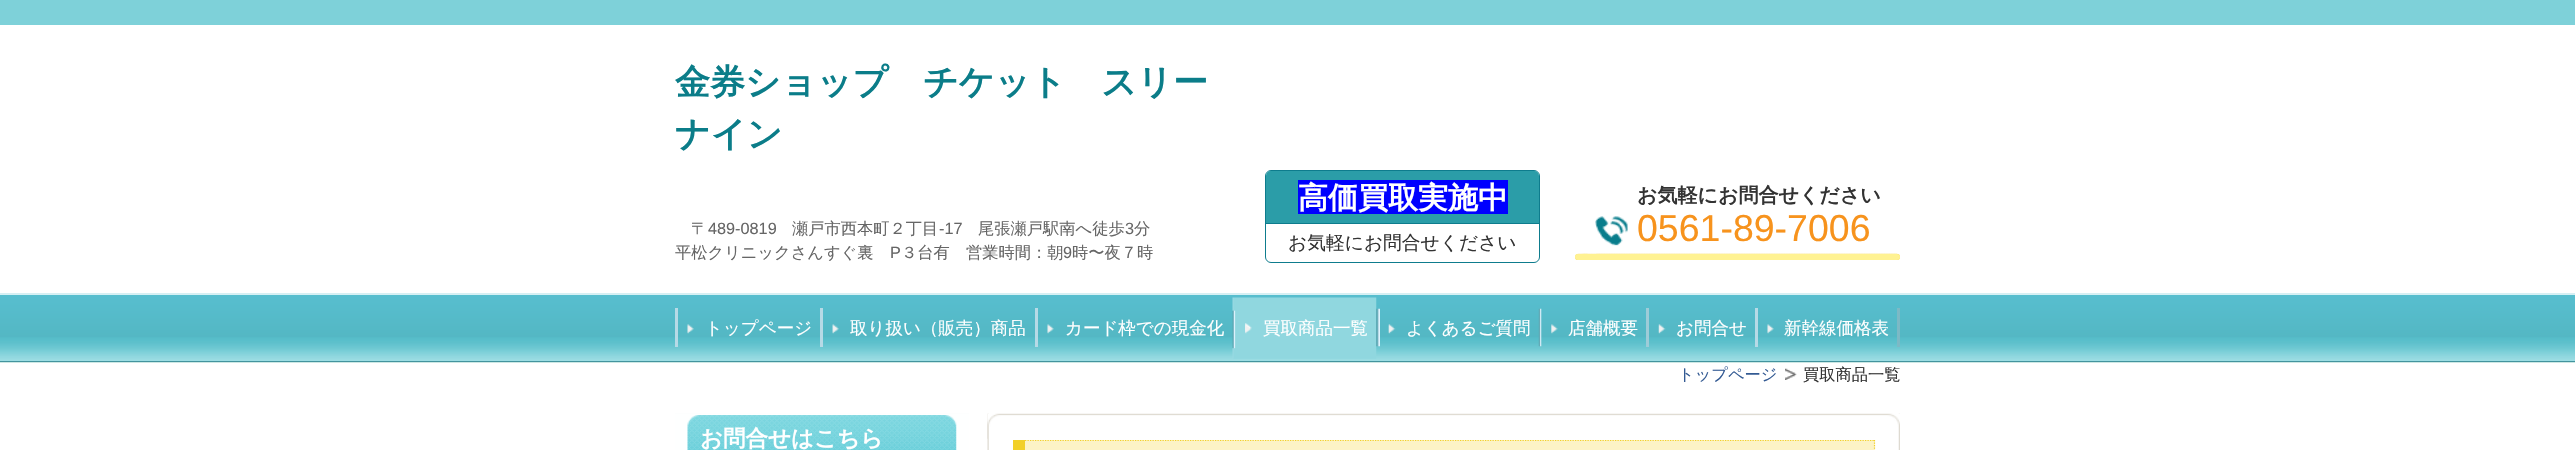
#include "include/core/SkBlurTypes.h"
#include "include/core/SkCanvas.h"
#include "include/core/SkData.h"
#include "include/core/SkFont.h"
#include "include/core/SkFontMgr.h"
#include "include/core/SkImage.h"
#include "include/core/SkMaskFilter.h"
#include "include/core/SkPaint.h"
#include "include/core/SkPathBuilder.h"
#include "include/core/SkTextBlob.h"
#include "include/effects/SkDashPathEffect.h"
#include "include/effects/SkGradientShader.h"
#include "include/utils/SkParsePath.h"

extern sk_sp<SkFontMgr> fontMgr;

void draw(SkCanvas* canvas) {
  SkPaint p;
  p.setAntiAlias(true);
  canvas->clear(SK_ColorWHITE);
  p.setColor(SkColorSetRGB(126, 209, 217));
  canvas->drawRect(SkRect::MakeLTRB(0, 0, 2575, 25), p);
  p.setStyle(SkPaint::kStroke_Style);
  p.setStrokeWidth(1);
  p.setColor(SkColorSetRGB(14, 124, 141));
  canvas->drawRoundRect(SkRect::MakeLTRB(1265.5f, 170.5f, 1539.5f, 262.5f), 5.5f, 5.5f, p);
  p.setStyle(SkPaint::kFill_Style);
  p.setColor(SkColorSetRGB(43, 157, 168));
  canvas->drawPath(SkPathBuilder().moveTo(1271, 171).lineTo(1534, 171).cubicTo(1537, 171, 1539, 173, 1539, 176).lineTo(1539, 224).lineTo(1266, 224).lineTo(1266, 176).cubicTo(1266, 173, 1268, 171, 1271, 171).close().detach(), p);
  p.setColor(SkColorSetRGB(14, 124, 141));
  canvas->drawRect(SkRect::MakeLTRB(1266, 223, 1539, 224), p);
  p.setColor(SkColorSetRGB(0, 0, 255));
  canvas->drawRect(SkRect::MakeLTRB(1298, 180, 1508, 214), p);
  canvas->drawImageRect(SkImages::DeferredFromEncodedData(SkData::MakeFromFileName("images/1.png")), SkRect::MakeLTRB(1595, 216, 1628, 246), SkSamplingOptions());
  canvas->drawImageRect(SkImages::DeferredFromEncodedData(SkData::MakeFromFileName("images/2.png")), SkRect::MakeLTRB(1575, 253, 1900, 260), SkSamplingOptions());
  p.setColor(SkColorSetRGB(255, 242, 146));
  canvas->drawRoundRect(SkRect::MakeLTRB(1575, 254, 1900, 260), 3, 3, p);
  p.setColor(SkColorSetRGB(249, 243, 226));
  canvas->drawRect(SkRect::MakeLTRB(0, 362, 2575, 363), p);
  canvas->drawImageRect(SkImages::DeferredFromEncodedData(SkData::MakeFromFileName("images/3.png")), SkRect::MakeLTRB(0, 293, 2575, 363), SkSamplingOptions());
  p.setColor(SkColorSetRGB(214, 240, 244));
  canvas->drawRect(SkRect::MakeLTRB(0, 294, 2575, 295), p);
  p.setColor(SkColorSetRGB(67, 148, 158));
  canvas->drawRect(SkRect::MakeLTRB(0, 361, 2575, 362), p);
  p.setColor(SkColorSetRGB(125, 185, 197));
  canvas->drawRect(SkRect::MakeLTRB(1897, 308, 1900, 347), p);
  p.setColor(SkColorSetRGB(183, 218, 230));
  canvas->drawRect(SkRect::MakeLTRB(675, 308, 678, 347), p);
  canvas->drawImageRect(SkImages::DeferredFromEncodedData(SkData::MakeFromFileName("images/4.png")), SkRect::MakeLTRB(687, 324, 694, 334), SkSamplingOptions());
  canvas->drawRect(SkRect::MakeLTRB(820, 308, 823, 347), p);
  canvas->drawImageRect(SkImages::DeferredFromEncodedData(SkData::MakeFromFileName("images/5.png")), SkRect::MakeLTRB(832, 324, 839, 334), SkSamplingOptions());
  canvas->drawRect(SkRect::MakeLTRB(1035, 308, 1038, 347), p);
  canvas->drawImageRect(SkImages::DeferredFromEncodedData(SkData::MakeFromFileName("images/6.png")), SkRect::MakeLTRB(1047, 324, 1054, 334), SkSamplingOptions());
  canvas->drawImageRect(SkImages::DeferredFromEncodedData(SkData::MakeFromFileName("images/7.png")), SkRect::MakeLTRB(1232, 297, 1377, 359), SkSamplingOptions());
  canvas->drawImageRect(SkImages::DeferredFromEncodedData(SkData::MakeFromFileName("images/8.png")), SkRect::MakeLTRB(1245, 324, 1252, 334), SkSamplingOptions());
  canvas->drawImageRect(SkImages::DeferredFromEncodedData(SkData::MakeFromFileName("images/9.png")), SkRect::MakeLTRB(1376, 308, 1380, 347), SkSamplingOptions());
  canvas->drawImageRect(SkImages::DeferredFromEncodedData(SkData::MakeFromFileName("images/10.png")), SkRect::MakeLTRB(1388, 324, 1396, 334), SkSamplingOptions());
  canvas->drawImageRect(SkImages::DeferredFromEncodedData(SkData::MakeFromFileName("images/11.png")), SkRect::MakeLTRB(1538, 308, 1542, 347), SkSamplingOptions());
  canvas->drawImageRect(SkImages::DeferredFromEncodedData(SkData::MakeFromFileName("images/12.png")), SkRect::MakeLTRB(1551, 324, 1558, 334), SkSamplingOptions());
  p.setColor(SkColorSetRGB(158, 204, 216));
  canvas->drawRect(SkRect::MakeLTRB(1646, 308, 1649, 347), p);
  canvas->drawImageRect(SkImages::DeferredFromEncodedData(SkData::MakeFromFileName("images/13.png")), SkRect::MakeLTRB(1658, 324, 1666, 334), SkSamplingOptions());
  p.setColor(SkColorSetRGB(183, 218, 230));
  canvas->drawRect(SkRect::MakeLTRB(1755, 308, 1758, 347), p);
  canvas->drawImageRect(SkImages::DeferredFromEncodedData(SkData::MakeFromFileName("images/14.png")), SkRect::MakeLTRB(1767, 324, 1774, 334), SkSamplingOptions());
  canvas->drawImageRect(SkImages::DeferredFromEncodedData(SkData::MakeFromFileName("images/15.png")), SkRect::MakeLTRB(1785, 368, 1797, 380), SkSamplingOptions());
  canvas->drawImageRect(SkImages::DeferredFromEncodedData(SkData::MakeFromFileName("images/16.png")), SkRect::MakeLTRB(675, 413, 1900, 450), SkSamplingOptions());
  p.setColor(SkColorSetRGB(254, 255, 255));
  canvas->drawRect(SkRect::MakeLTRB(675, 414, 969, 450), p);
  canvas->drawImageRect(SkImages::DeferredFromEncodedData(SkData::MakeFromFileName("images/17.png")), SkRect::MakeLTRB(687, 415, 957, 450), SkSamplingOptions());
  canvas->drawImageRect(SkImages::DeferredFromEncodedData(SkData::MakeFromFileName("images/18.png")), SkRect::MakeLTRB(987, 413, 1900, 439), SkSamplingOptions());
  p.setColor(SkColorSetRGB(252, 243, 198));
  canvas->drawRect(SkRect::MakeLTRB(1025, 440, 1875, 450), p);
  p.setColor(SkColorSetRGB(242, 208, 40));
  canvas->drawRect(SkRect::MakeLTRB(1013, 440, 1025, 450), p);
  p.setStyle(SkPaint::kStroke_Style);
  p.setStrokeWidth(1.2f);
  p.setPathEffect(SkDashPathEffect::Make({{1.25f, 1.25f}}, 0));
  canvas->drawPath(SkPathBuilder().moveTo(1025, 440.5f).lineTo(1050, 440.5f).detach(), p);
  p.setPathEffect(nullptr);
  p.setPathEffect(SkDashPathEffect::Make({{1.25f, 1.25f}}, 0));
  canvas->drawPath(SkPathBuilder().moveTo(1050, 440.5f).lineTo(1875, 440.5f).detach(), p);
  p.setPathEffect(nullptr);
  p.setPathEffect(SkDashPathEffect::Make({{1.25f, 1.25f}}, 0));
  canvas->drawPath(SkPathBuilder().moveTo(1874.5f, 440).lineTo(1874.5f, 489).detach(), p);
  p.setPathEffect(nullptr);
  SkFont font1(fontMgr->matchFamilyStyle("WenQuanYi Zen Hei", SkFontStyle::Bold()), 35);
  font1.setSubpixel(true);
  p.setStyle(SkPaint::kFill_Style);
  p.setColor(SkColorSetRGB(11, 125, 137));
  canvas->drawString("金券ショップ", 675, 94, font1, p);
  canvas->drawString("チケット　スリー", 923, 94, font1, p);
  canvas->drawString("ナイン", 675, 146, font1, p);
  SkFont font2(fontMgr->matchFamilyStyle("WenQuanYi Zen Hei", SkFontStyle(500, SkFontStyle::kNormal_Width, SkFontStyle::kUpright_Slant)), 16.25f);
  font2.setSubpixel(true);
  p.setColor(SkColorSetRGB(102, 102, 102));
  canvas->drawString("〒", 691, 234, font2, p);
  SkFont font3(fontMgr->matchFamilyStyle("Liberation Sans", SkFontStyle::Normal()), 16.25f);
  font3.setSubpixel(true);
  canvas->drawString("489-0819", 708, 234, font3, p);
  canvas->drawString("瀬戸市西本町２丁目", 792, 234, font2, p);
  canvas->drawString("-17", 939, 234, font3, p);
  canvas->drawString("尾張瀬戸駅南へ徒歩", 978, 234, font2, p);
  canvas->drawString("3", 1125, 234, font3, p);
  canvas->drawString("分", 1134, 234, font2, p);
  canvas->drawString("平松クリニックさんすぐ裏", 675, 258, font2, p);
  canvas->drawString("P", 890, 258, font3, p);
  canvas->drawString("３台有　営業時間：朝", 901, 258, font2, p);
  canvas->drawString("9", 1063, 258, font3, p);
  canvas->drawString("時〜夜７時", 1072, 258, font2, p);
  SkFont font4(fontMgr->matchFamilyStyle("WenQuanYi Zen Hei", SkFontStyle::Bold()), 30);
  font4.setSubpixel(true);
  p.setColor(SK_ColorWHITE);
  canvas->drawString("高価買取実施中", 1298, 208, font4, p);
  SkFont font5(fontMgr->matchFamilyStyle("WenQuanYi Zen Hei", SkFontStyle(500, SkFontStyle::kNormal_Width, SkFontStyle::kUpright_Slant)), 18.75f);
  font5.setSubpixel(true);
  p.setColor(SkColorSetRGB(51, 51, 51));
  canvas->drawString("お気軽にお問合せください", 1288, 249, font5, p);
  SkFont font6(fontMgr->matchFamilyStyle("WenQuanYi Zen Hei", SkFontStyle::Bold()), 20);
  font6.setSubpixel(true);
  canvas->drawString("お気軽にお問合せください", 1637, 202, font6, p);
  SkFont font7(fontMgr->matchFamilyStyle("Liberation Sans", SkFontStyle::Normal()), 37.5f);
  font7.setSubpixel(true);
  p.setColor(SkColorSetRGB(247, 147, 29));
  canvas->drawString("0561-89-7006", 1637, 241, font7, p);
  SkFont font8(fontMgr->matchFamilyStyle("WenQuanYi Zen Hei", SkFontStyle(500, SkFontStyle::kNormal_Width, SkFontStyle::kUpright_Slant)), 17.5f);
  font8.setSubpixel(true);
  p.setColor(SK_ColorWHITE);
  canvas->drawString("トップページ", 705, 334, font8, p);
  canvas->drawString("取り扱い（販売）商品", 850, 334, font8, p);
  canvas->drawString("カード枠での現金化", 1065, 334, font8, p);
  canvas->drawString("買取商品一覧", 1263, 334, font8, p);
  canvas->drawString("よくあるご質問", 1406, 334, font8, p);
  canvas->drawString("店舗概要", 1568, 334, font8, p);
  canvas->drawString("お問合せ", 1676, 334, font8, p);
  canvas->drawString("新幹線価格表", 1784, 334, font8, p);
  p.setColor(SkColorSetRGB(51, 90, 147));
  canvas->drawString("トップページ", 1678, 380, font2, p);
  p.setColor(SkColorSetRGB(51, 51, 51));
  canvas->drawString("買取商品一覧", 1803, 380, font2, p);
  SkFont font9(fontMgr->matchFamilyStyle("WenQuanYi Zen Hei", SkFontStyle::Bold()), 22.5f);
  font9.setSubpixel(true);
  p.setColor(SK_ColorWHITE);
  canvas->drawString("お問合せはこちら", 700, 446, font9, p);
}
